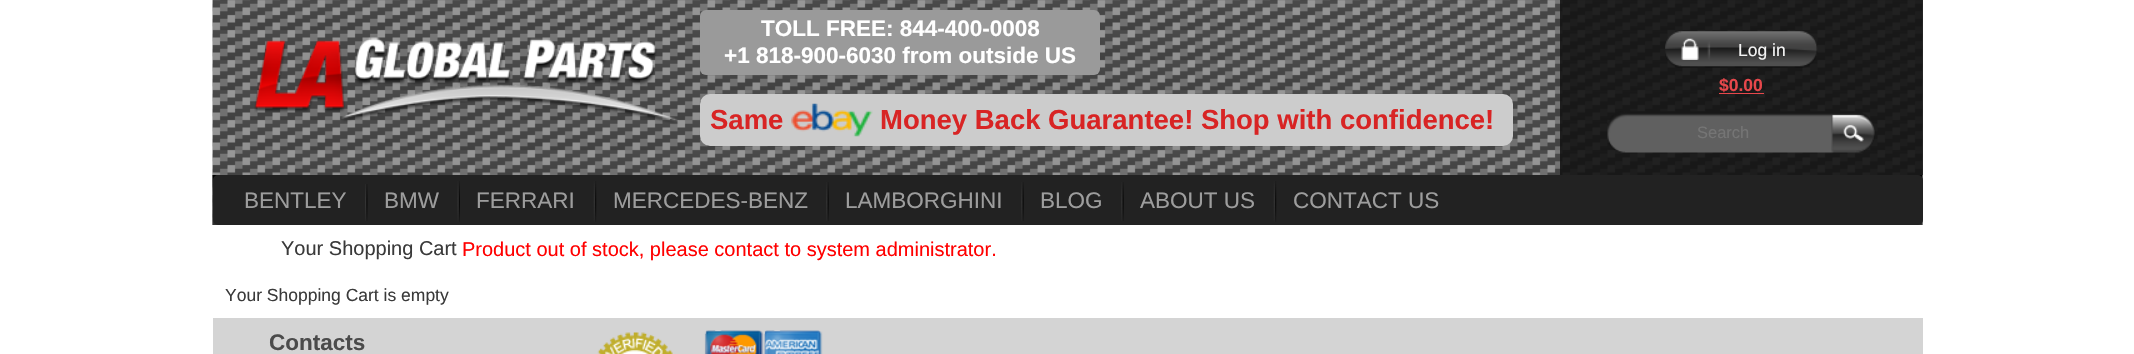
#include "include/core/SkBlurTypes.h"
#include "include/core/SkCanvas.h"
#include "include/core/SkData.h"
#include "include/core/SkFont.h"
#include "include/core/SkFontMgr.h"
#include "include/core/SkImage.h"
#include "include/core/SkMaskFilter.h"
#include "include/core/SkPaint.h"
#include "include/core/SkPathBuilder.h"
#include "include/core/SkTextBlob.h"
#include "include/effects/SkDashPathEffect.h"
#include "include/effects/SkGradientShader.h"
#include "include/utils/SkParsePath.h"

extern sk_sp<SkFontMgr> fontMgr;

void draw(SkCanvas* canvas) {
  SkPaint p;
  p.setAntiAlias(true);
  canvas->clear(SK_ColorWHITE);
  canvas->drawImageRect(SkImages::DeferredFromEncodedData(SkData::MakeFromFileName("images/1.png")), SkRect::MakeLTRB(212, 0, 1923, 225), SkSamplingOptions());
  canvas->drawImageRect(SkImages::DeferredFromEncodedData(SkData::MakeFromFileName("images/2.png")), SkRect::MakeLTRB(254, 37, 679, 125), SkSamplingOptions());
  p.setColor(SkColorSetRGB(154, 154, 154));
  canvas->drawRoundRect(SkRect::MakeLTRB(700, 10, 1100, 75), 6, 6, p);
  p.setColor(SkColorSetRGB(204, 204, 204));
  canvas->drawRoundRect(SkRect::MakeLTRB(700, 94, 1513, 146), 10, 10, p);
  canvas->drawImageRect(SkImages::DeferredFromEncodedData(SkData::MakeFromFileName("images/3.png")), SkRect::MakeLTRB(791, 103, 873, 137), SkSamplingOptions());
  p.setColor(SkColorSetARGB(227, 18, 18, 18));
  canvas->drawRect(SkRect::MakeLTRB(1560, 0, 1923, 175), p);
  canvas->drawImageRect(SkImages::DeferredFromEncodedData(SkData::MakeFromFileName("images/4.png")), SkRect::MakeLTRB(1665, 31, 1818, 68), SkSamplingOptions());
  canvas->drawImageRect(SkImages::DeferredFromEncodedData(SkData::MakeFromFileName("images/5.png")), SkRect::MakeLTRB(1681, 38, 1699, 60), SkSamplingOptions());
  p.setColor(SkColorSetRGB(231, 71, 75));
  canvas->drawRect(SkRect::MakeLTRB(1719, 93, 1764, 94), p);
  canvas->drawImageRect(SkImages::DeferredFromEncodedData(SkData::MakeFromFileName("images/6.png")), SkRect::MakeLTRB(1607, 111, 1875, 153), SkSamplingOptions());
  canvas->drawImageRect(SkImages::DeferredFromEncodedData(SkData::MakeFromFileName("images/7.png")), SkRect::MakeLTRB(212, 175, 1923, 225), SkSamplingOptions());
  p.setColor(SkColorSetRGB(34, 34, 34));
  canvas->drawRoundRect(SkRect::MakeLTRB(213, 175, 1923, 225), 5, 5, p);
  canvas->drawImageRect(SkImages::DeferredFromEncodedData(SkData::MakeFromFileName("images/8.png")), SkRect::MakeLTRB(365, 184, 368, 221), SkSamplingOptions());
  canvas->drawImageRect(SkImages::DeferredFromEncodedData(SkData::MakeFromFileName("images/9.png")), SkRect::MakeLTRB(457, 181, 460, 222), SkSamplingOptions());
  canvas->drawImageRect(SkImages::DeferredFromEncodedData(SkData::MakeFromFileName("images/10.png")), SkRect::MakeLTRB(593, 181, 597, 222), SkSamplingOptions());
  canvas->drawImageRect(SkImages::DeferredFromEncodedData(SkData::MakeFromFileName("images/11.png")), SkRect::MakeLTRB(826, 182, 829, 221), SkSamplingOptions());
  canvas->drawImageRect(SkImages::DeferredFromEncodedData(SkData::MakeFromFileName("images/11.png")), SkRect::MakeLTRB(1021, 182, 1024, 221), SkSamplingOptions());
  canvas->drawImageRect(SkImages::DeferredFromEncodedData(SkData::MakeFromFileName("images/11.png")), SkRect::MakeLTRB(1121, 182, 1124, 221), SkSamplingOptions());
  canvas->drawImageRect(SkImages::DeferredFromEncodedData(SkData::MakeFromFileName("images/10.png")), SkRect::MakeLTRB(1273, 181, 1277, 222), SkSamplingOptions());
  p.setColor(SkColorSetRGB(212, 212, 212));
  canvas->drawRect(SkRect::MakeLTRB(213, 318, 1923, 354), p);
  canvas->drawImageRect(SkImages::DeferredFromEncodedData(SkData::MakeFromFileName("images/12.png")), SkRect::MakeLTRB(597, 332, 673, 354), SkSamplingOptions());
  canvas->drawImageRect(SkImages::DeferredFromEncodedData(SkData::MakeFromFileName("images/13.png")), SkRect::MakeLTRB(704, 330, 823, 354), SkSamplingOptions());
  SkFont font1(fontMgr->matchFamilyStyle("Liberation Sans", SkFontStyle::Bold()), 22.5f);
  font1.setSubpixel(true);
  p.setColor(SK_ColorWHITE);
  canvas->drawString("TOLL FREE: 844-400-0008", 761, 36, font1, p);
  canvas->drawString("+1 818-900-6030 from outside US", 724, 63, font1, p);
  SkFont font2(fontMgr->matchFamilyStyle("Liberation Sans", SkFontStyle::Bold()), 27.5f);
  font2.setSubpixel(true);
  p.setColor(SkColorSetRGB(216, 36, 36));
  canvas->drawString("Same", 710, 129, font2, p);
  canvas->drawString("Money Back Guarantee! Shop with confidence!", 880, 129, font2, p);
  SkFont font3(fontMgr->matchFamilyStyle("Liberation Sans", SkFontStyle::Normal()), 17.5f);
  font3.setSubpixel(true);
  p.setColor(SkColorSetRGB(243, 243, 243));
  canvas->drawString("Log in", 1738, 56, font3, p);
  SkFont font4(fontMgr->matchFamilyStyle("Liberation Sans", SkFontStyle::Bold()), 17.5f);
  font4.setSubpixel(true);
  p.setColor(SkColorSetRGB(231, 71, 75));
  canvas->drawString("$0.00", 1719, 91, font4, p);
  SkFont font5(fontMgr->matchFamilyStyle("Liberation Sans", SkFontStyle::Normal()), 16.5f);
  font5.setSubpixel(true);
  p.setColor(SkColorSetRGB(117, 117, 117));
  canvas->drawString("Search", 1697, 138, font5, p);
  SkFont font6(fontMgr->matchFamilyStyle("Liberation Sans", SkFontStyle::Normal()), 22.5f);
  font6.setSubpixel(true);
  p.setColor(SkColorSetRGB(157, 157, 157));
  canvas->drawString("BENTLEY", 244, 208, font6, p);
  canvas->drawString("BMW", 384, 208, font6, p);
  canvas->drawString("FERRARI", 476, 208, font6, p);
  canvas->drawString("MERCEDES-BENZ", 613, 208, font6, p);
  canvas->drawString("LAMBORGHINI", 845, 208, font6, p);
  canvas->drawString("BLOG", 1040, 208, font6, p);
  canvas->drawString("ABOUT US", 1140, 208, font6, p);
  canvas->drawString("CONTACT US", 1293, 208, font6, p);
  SkFont font7(fontMgr->matchFamilyStyle("Liberation Sans", SkFontStyle::Normal()), 20);
  font7.setSubpixel(true);
  p.setColor(SkColorSetRGB(58, 58, 58));
  canvas->drawString("Your Shopping Cart", 281, 255, font7, p);
  p.setColor(SkColorSetRGB(255, 0, 0));
  canvas->drawString("Product out of stock, please contact to system administrator.", 462, 256, font7, p);
  p.setColor(SkColorSetRGB(58, 58, 58));
  canvas->drawString("Your Shopping Cart is empty", 225, 301, font3, p);
  p.setColor(SkColorSetRGB(75, 75, 75));
  canvas->drawString("Contacts", 269, 350, font1, p);
}
